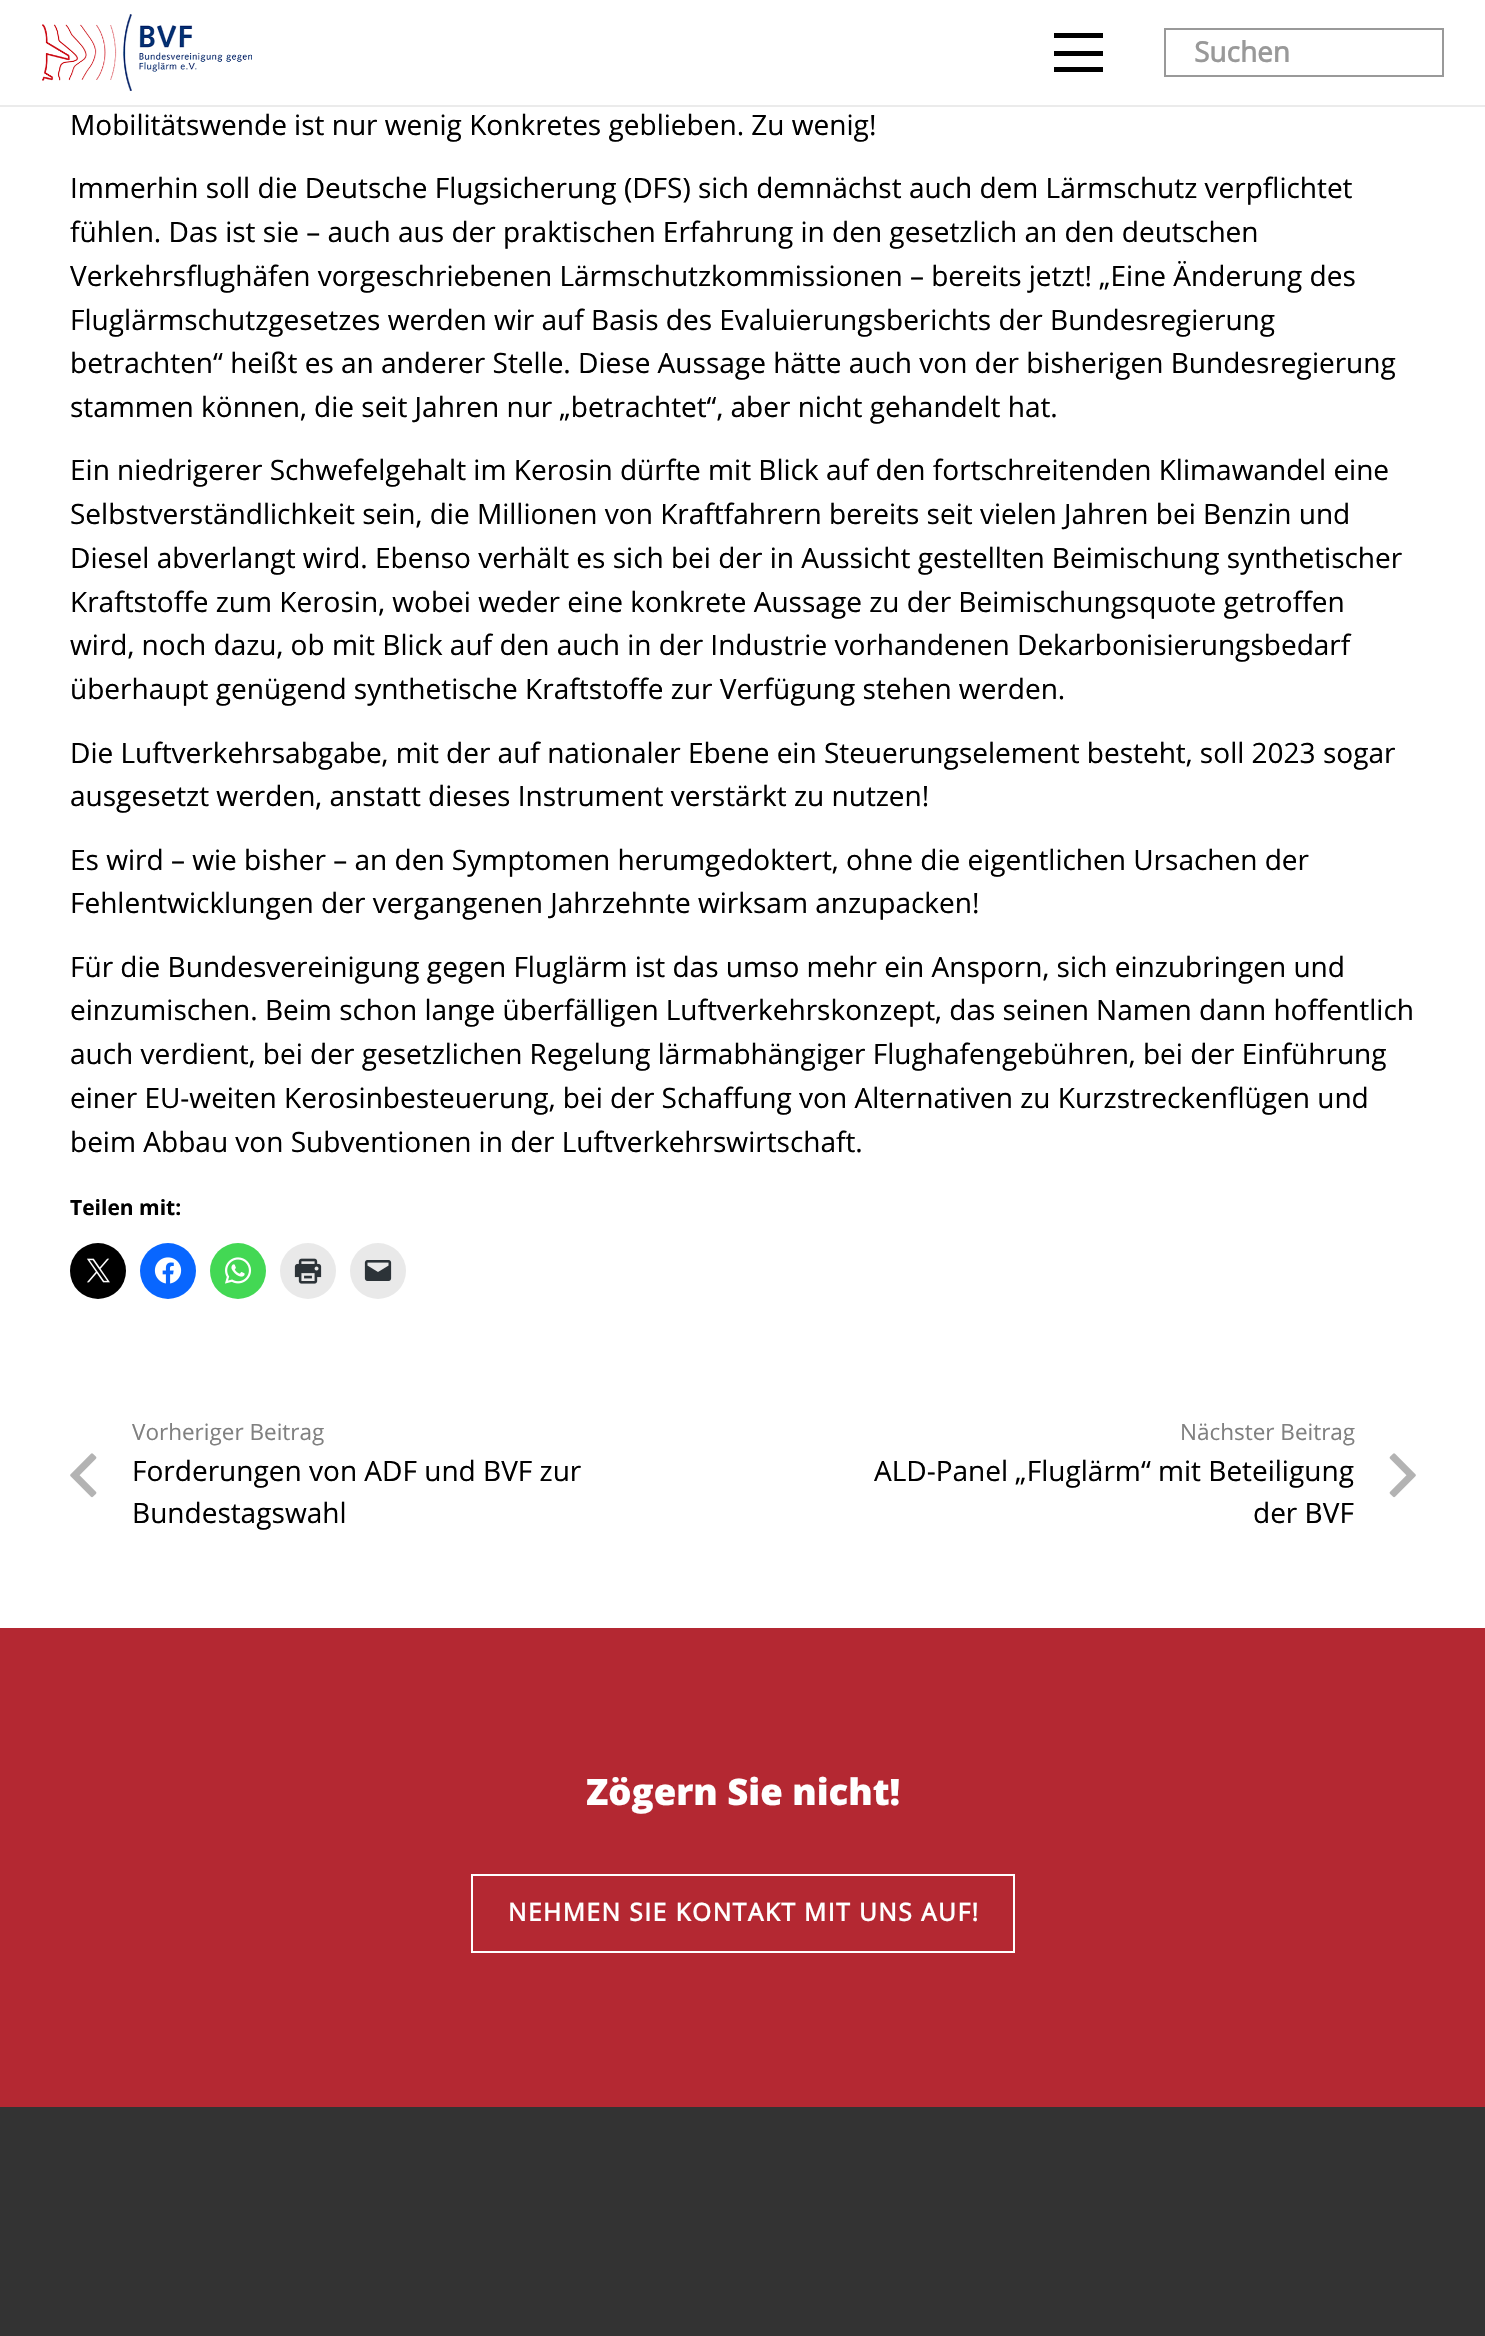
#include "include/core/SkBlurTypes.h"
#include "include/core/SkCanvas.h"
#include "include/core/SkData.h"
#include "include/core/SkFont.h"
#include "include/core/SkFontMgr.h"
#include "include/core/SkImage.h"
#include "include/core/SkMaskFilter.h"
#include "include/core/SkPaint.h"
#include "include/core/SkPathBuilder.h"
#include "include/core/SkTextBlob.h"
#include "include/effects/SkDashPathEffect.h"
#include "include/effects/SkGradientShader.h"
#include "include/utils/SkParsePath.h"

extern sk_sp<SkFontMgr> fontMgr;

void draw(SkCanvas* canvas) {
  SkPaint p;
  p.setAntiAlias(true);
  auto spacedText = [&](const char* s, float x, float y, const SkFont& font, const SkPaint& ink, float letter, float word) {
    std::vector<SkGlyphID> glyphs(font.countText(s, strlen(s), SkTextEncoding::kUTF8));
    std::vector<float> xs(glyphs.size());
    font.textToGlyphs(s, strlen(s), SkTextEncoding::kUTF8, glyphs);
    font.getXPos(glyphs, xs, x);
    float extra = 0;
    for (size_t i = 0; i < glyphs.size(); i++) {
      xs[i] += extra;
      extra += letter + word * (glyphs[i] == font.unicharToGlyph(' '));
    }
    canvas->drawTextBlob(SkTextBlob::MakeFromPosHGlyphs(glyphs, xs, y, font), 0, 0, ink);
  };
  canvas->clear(SK_ColorWHITE);
  p.setColor(SkColorSetRGB(235, 235, 235));
  canvas->drawPath(SkPathBuilder().moveTo(0, 105).lineTo(0, 107).lineTo(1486, 107).lineTo(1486, 2).lineTo(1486, 105).close().detach(), p);
  canvas->drawImageRect(SkImages::DeferredFromEncodedData(SkData::MakeFromFileName("images/1.png")), SkRect::MakeLTRB(42, 14, 252, 91), SkSamplingOptions());
  p.setColor(SK_ColorBLACK);
  canvas->drawRect(SkRect::MakeLTRB(1054, 51, 1103, 56), p);
  canvas->drawRect(SkRect::MakeLTRB(1054, 33, 1103, 38), p);
  canvas->drawRect(SkRect::MakeLTRB(1054, 67, 1103, 72), p);
  p.setStyle(SkPaint::kStroke_Style);
  p.setStrokeWidth(2);
  p.setColor(SkColorSetRGB(153, 153, 153));
  canvas->drawRect(SkRect::MakeLTRB(1165, 29, 1443, 76), p);
  p.setStyle(SkPaint::kFill_Style);
  p.setColor(SK_ColorBLACK);
  canvas->drawCircle(98, 1271, 28, p);
  canvas->drawImageRect(SkImages::DeferredFromEncodedData(SkData::MakeFromFileName("images/2.png")), SkRect::MakeLTRB(87, 1258, 110, 1283), SkSamplingOptions());
  p.setColor(SkColorSetRGB(8, 102, 255));
  canvas->drawCircle(168, 1271, 28, p);
  canvas->drawImageRect(SkImages::DeferredFromEncodedData(SkData::MakeFromFileName("images/3.png")), SkRect::MakeLTRB(154, 1257, 182, 1284), SkSamplingOptions());
  p.setColor(SkColorSetRGB(67, 216, 84));
  canvas->drawCircle(238, 1271, 28, p);
  canvas->drawImageRect(SkImages::DeferredFromEncodedData(SkData::MakeFromFileName("images/4.png")), SkRect::MakeLTRB(225, 1257, 252, 1284), SkSamplingOptions());
  p.setColor(SkColorSetRGB(233, 233, 233));
  canvas->drawCircle(308, 1271, 28, p);
  canvas->drawImageRect(SkImages::DeferredFromEncodedData(SkData::MakeFromFileName("images/5.png")), SkRect::MakeLTRB(294, 1258, 322, 1284), SkSamplingOptions());
  canvas->drawCircle(378, 1271, 28, p);
  canvas->drawImageRect(SkImages::DeferredFromEncodedData(SkData::MakeFromFileName("images/6.png")), SkRect::MakeLTRB(364, 1260, 392, 1281), SkSamplingOptions());
  canvas->drawImageRect(SkImages::DeferredFromEncodedData(SkData::MakeFromFileName("images/7.png")), SkRect::MakeLTRB(70, 1453, 97, 1498), SkSamplingOptions());
  canvas->drawImageRect(SkImages::DeferredFromEncodedData(SkData::MakeFromFileName("images/8.png")), SkRect::MakeLTRB(1389, 1453, 1416, 1498), SkSamplingOptions());
  p.setColor(SkColorSetRGB(180, 40, 50));
  canvas->drawRect(SkRect::MakeLTRB(0, 1628, 1485, 2107), p);
  p.setStyle(SkPaint::kStroke_Style);
  p.setColor(SK_ColorWHITE);
  canvas->drawRect(SkRect::MakeLTRB(472, 1875, 1014, 1952), p);
  p.setStyle(SkPaint::kFill_Style);
  p.setColor(SkColorSetRGB(51, 51, 51));
  canvas->drawRect(SkRect::MakeLTRB(0, 2107, 1485, 2336), p);
  SkFont font1(fontMgr->matchFamilyStyle("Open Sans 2", SkFontStyle::Bold()), 28);
  font1.setSubpixel(true);
  p.setColor(SkColorSetRGB(153, 153, 153));
  canvas->drawString("Suchen", 1194, 62, font1, p);
  SkFont font2(fontMgr->matchFamilyStyle("Open Sans", SkFontStyle::Normal()), 28);
  font2.setSubpixel(true);
  p.setColor(SK_ColorBLACK);
  canvas->drawString("Mobilitätswende ist nur wenig Konkretes geblieben. Zu wenig!", 70, 135, font2, p);
  canvas->drawString("Immerhin soll die Deutsche Flugsicherung (DFS) sich demnächst auch dem Lärmschutz verpflichtet", 70, 198, font2, p);
  canvas->drawString("fühlen. Das ist sie – auch aus der praktischen Erfahrung in den gesetzlich an den deutschen", 70, 242, font2, p);
  canvas->drawString("Verkehrsflughäfen vorgeschriebenen Lärmschutzkommissionen – bereits jetzt! „Eine Änderung des", 70, 286, font2, p);
  canvas->drawString("Fluglärmschutzgesetzes werden wir auf Basis des Evaluierungsberichts der Bundesregierung", 70, 330, font2, p);
  canvas->drawString("betrachten“ heißt es an anderer Stelle. Diese Aussage hätte auch von der bisherigen Bundesregierung", 70, 373, font2, p);
  canvas->drawString("stammen können, die seit Jahren nur „betrachtet“, aber nicht gehandelt hat.", 70, 417, font2, p);
  canvas->drawString("Ein niedrigerer Schwefelgehalt im Kerosin dürfte mit Blick auf den fortschreitenden Klimawandel eine", 70, 480, font2, p);
  canvas->drawString("Selbstverständlichkeit sein, die Millionen von Kraftfahrern bereits seit vielen Jahren bei Benzin und", 70, 524, font2, p);
  canvas->drawString("Diesel abverlangt wird. Ebenso verhält es sich bei der in Aussicht gestellten Beimischung synthetischer", 70, 568, font2, p);
  canvas->drawString("Kraftstoffe zum Kerosin, wobei weder eine konkrete Aussage zu der Beimischungsquote getroffen", 70, 612, font2, p);
  canvas->drawString("wird, noch dazu, ob mit Blick auf den auch in der Industrie vorhandenen Dekarbonisierungsbedarf", 70, 655, font2, p);
  canvas->drawString("überhaupt genügend synthetische Kraftstoffe zur Verfügung stehen werden.", 70, 699, font2, p);
  canvas->drawString("Die Luftverkehrsabgabe, mit der auf nationaler Ebene ein Steuerungselement besteht, soll 2023 sogar", 70, 763, font2, p);
  canvas->drawString("ausgesetzt werden, anstatt dieses Instrument verstärkt zu nutzen!", 70, 806, font2, p);
  canvas->drawString("Es wird – wie bisher – an den Symptomen herumgedoktert, ohne die eigentlichen Ursachen der", 70, 870, font2, p);
  canvas->drawString("Fehlentwicklungen der vergangenen Jahrzehnte wirksam anzupacken!", 70, 913, font2, p);
  canvas->drawString("Für die Bundesvereinigung gegen Fluglärm ist das umso mehr ein Ansporn, sich einzubringen und", 70, 977, font2, p);
  canvas->drawString("einzumischen. Beim schon lange überfälligen Luftverkehrskonzept, das seinen Namen dann hoffentlich", 70, 1020, font2, p);
  canvas->drawString("auch verdient, bei der gesetzlichen Regelung lärmabhängiger Flughafengebühren, bei der Einführung", 70, 1064, font2, p);
  canvas->drawString("einer EU-weiten Kerosinbesteuerung, bei der Schaffung von Alternativen zu Kurzstreckenflügen und", 70, 1108, font2, p);
  canvas->drawString("beim Abbau von Subventionen in der Luftverkehrswirtschaft.", 70, 1152, font2, p);
  SkFont font3(fontMgr->matchFamilyStyle("Open Sans", SkFontStyle::Bold()), 21);
  font3.setSubpixel(true);
  canvas->drawString("Teilen mit:", 70, 1215, font3, p);
  SkFont font4(fontMgr->matchFamilyStyle("Open Sans", SkFontStyle::Normal()), 22.5f);
  font4.setSubpixel(true);
  p.setColor(SkColorSetRGB(128, 128, 128));
  canvas->drawString("Vorheriger Beitrag", 132, 1440, font4, p);
  p.setColor(SK_ColorBLACK);
  canvas->drawString("Forderungen von ADF und BVF zur", 132, 1481, font2, p);
  canvas->drawString("Bundestagswahl", 132, 1523, font2, p);
  p.setColor(SkColorSetRGB(128, 128, 128));
  canvas->drawString("Nächster Beitrag", 1180, 1440, font4, p);
  p.setColor(SK_ColorBLACK);
  canvas->drawString("ALD-Panel „Fluglärm“ mit Beteiligung", 874, 1481, font2, p);
  canvas->drawString("der BVF", 1253, 1523, font2, p);
  SkFont font5(fontMgr->matchFamilyStyle("Open Sans", SkFontStyle(800, SkFontStyle::kNormal_Width, SkFontStyle::kUpright_Slant)), 36.5f);
  font5.setSubpixel(true);
  p.setColor(SK_ColorWHITE);
  canvas->drawString("Zögern Sie nicht!", 586, 1805, font5, p);
  SkFont font6(fontMgr->matchFamilyStyle("Open Sans 2", SkFontStyle::Bold()), 24.5f);
  font6.setSubpixel(true);
  spacedText("NEHMEN SIE KONTAKT MIT UNS AUF!", 508, 1921, font6, p, 1.5f, 0);
}
